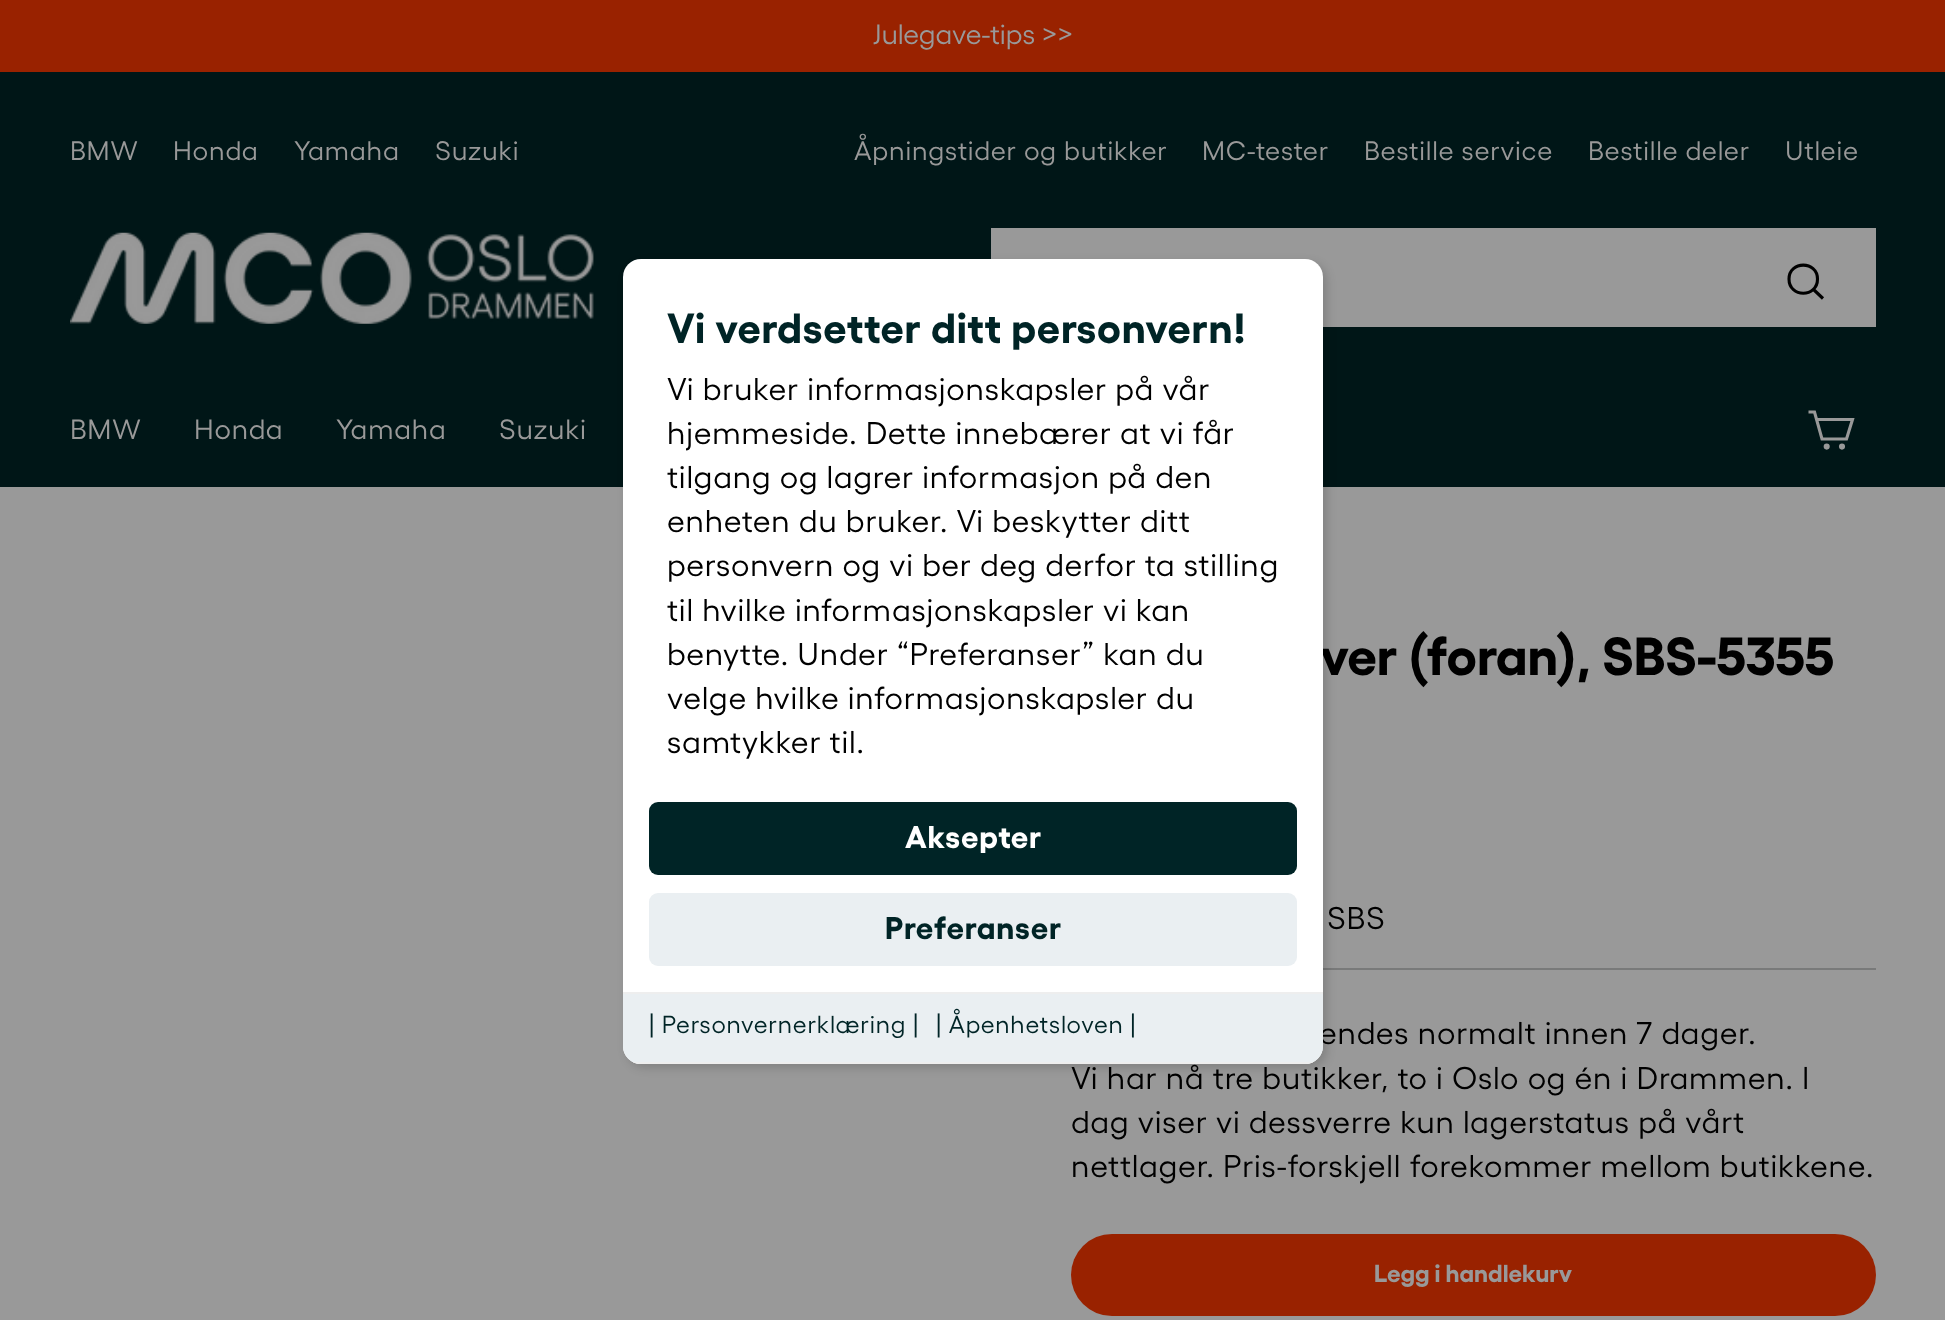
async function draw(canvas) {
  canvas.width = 1945;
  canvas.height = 1320;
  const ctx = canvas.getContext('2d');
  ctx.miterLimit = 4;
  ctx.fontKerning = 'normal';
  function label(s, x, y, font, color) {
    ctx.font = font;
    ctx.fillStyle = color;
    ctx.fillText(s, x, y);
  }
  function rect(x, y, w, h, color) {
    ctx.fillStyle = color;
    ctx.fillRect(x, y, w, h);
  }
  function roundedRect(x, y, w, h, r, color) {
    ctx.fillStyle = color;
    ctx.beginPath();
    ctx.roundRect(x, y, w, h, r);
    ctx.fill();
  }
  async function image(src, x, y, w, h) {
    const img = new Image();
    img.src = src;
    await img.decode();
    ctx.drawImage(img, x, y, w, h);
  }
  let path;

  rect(0, 0, 1945, 1320, '#999');
  rect(0, 72, 1945, 415, '#001617');
  rect(0, 0, 1945, 72, '#920');
  label('Julegave-tips >>', 873, 44, '28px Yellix', '#999');
  ctx.letterSpacing = '0.8px';
  label('BMW', 70, 160, '26.75px Yellix', '#999');
  label('Honda', 173, 160, '26.75px Yellix', '#999');
  label('Yamaha', 294, 160, '26.75px Yellix', '#999');
  label('Suzuki', 435, 160, '26.75px Yellix', '#999');
  label('Åpningstider og butikker', 854, 160, '26.75px Yellix', '#999');
  label('MC-tester', 1202, 160, '26.75px Yellix', '#999');
  label('Bestille service', 1364, 160, '26.75px Yellix', '#999');
  label('Bestille deler', 1588, 160, '26.75px Yellix', '#999');
  label('Utleie', 1785, 160, '26.75px Yellix', '#999');
  await image('assets/img1.png', 70, 232, 524, 92);
  rect(991, 228, 885, 99, '#999');
  path = new Path2D('M1817.5 279C1817.5 298 1789 298 1789 279C1789 260.5 1817.5 260.5 1817.5 279ZM1823 298.5L1813.5 289.5');
  ctx.strokeStyle = '#000';
  ctx.lineWidth = 3.1;
  ctx.stroke(path);
  label('BMW', 70, 439, '28px Yellix', '#999');
  label('Honda', 194, 439, '28px Yellix', '#999');
  label('Yamaha', 336, 439, '28px Yellix', '#999');
  label('Suzuki', 499, 439, '28px Yellix', '#999');
  path = new Path2D('M1816.5 419.5H1852.5L1846.5 439H1822L1814.5 412H1808.5');
  ctx.strokeStyle = '#999';
  ctx.stroke(path);
  ctx.beginPath();
  ctx.arc(1826.7, 446.6, 1.5, 0, 2 * Math.PI);
  ctx.stroke();
  ctx.beginPath();
  ctx.arc(1842, 446.6, 1.5, 0, 2 * Math.PI);
  ctx.stroke();
  ctx.letterSpacing = '0px';
  label('ver (foran), SBS-5355', 1320, 675, 'bold 53.5px Yellix', '#000');
  ctx.letterSpacing = '0.8px';
  label('SBS', 1327, 929, '31.5px Yellix', '#000');
  rect(1323, 968, 553, 2, '#797a7a');
  label('endes normalt innen 7 dager.', 1319, 1044, '31.5px Yellix', '#000');
  label('Vi har nå tre butikker, to i Oslo og én i Drammen. I', 1071, 1089, '31.5px Yellix', '#000');
  label('dag viser vi dessverre kun lagerstatus på vårt', 1071, 1133, '31.5px Yellix', '#000');
  label('nettlager. Pris-forskjell forekommer mellom butikkene.', 1071, 1177, '31.5px Yellix', '#000');
  roundedRect(1071, 1234, 805, 82, 41, '#920');
  ctx.letterSpacing = '0px';
  label('Legg i handlekurv', 1374, 1282, 'bold 24.5px Yellix', '#999');
  ctx.fillStyle = '#00000026';
  ctx.filter = 'blur(5px)';
  ctx.beginPath();
  ctx.roundRect(627, 263, 700, 805, 18);
  ctx.fill();
  ctx.filter = 'none';
  roundedRect(623, 259, 700, 805, 18, '#fff');
  ctx.letterSpacing = '0.8px';
  label('Vi verdsetter ditt personvern!', 667, 343, 'bold 42px Yellix', '#002426');
  label('Vi bruker informasjonskapsler på vår', 667, 400, '31.5px Yellix', '#000');
  label('hjemmeside. Dette innebærer at vi får', 667, 444, '31.5px Yellix', '#000');
  label('tilgang og lagrer informasjon på den', 667, 488, '31.5px Yellix', '#000');
  label('enheten du bruker. Vi beskytter ditt', 667, 532, '31.5px Yellix', '#000');
  label('personvern og vi ber deg derfor ta stilling', 667, 576, '31.5px Yellix', '#000');
  label('til hvilke informasjonskapsler vi kan', 667, 621, '31.5px Yellix', '#000');
  label('benytte. Under “Preferanser” kan du', 667, 665, '31.5px Yellix', '#000');
  label('velge hvilke informasjonskapsler du', 667, 709, '31.5px Yellix', '#000');
  label('samtykker til.', 667, 753, '31.5px Yellix', '#000');
  roundedRect(649, 802, 648, 73, 9, '#002426');
  label('Aksepter', 905, 848, 'bold 31.5px Yellix', '#fff');
  roundedRect(649, 893, 648, 73, 9, '#eaeff2');
  label('Preferanser', 885, 939, 'bold 31.5px Yellix', '#002426');
  ctx.fillStyle = '#eaeff2';
  ctx.beginPath();
  ctx.roundRect(623, 992, 700, 72, [0, 0, 18, 18]);
  ctx.fill();
  rect(623, 992, 700, 2, '#eee');
  ctx.save();
  ctx.beginPath();
  ctx.roundRect(623, 259, 700, 805, 18);
  ctx.clip();
  rect(633, 1062, 680, 2, '#eee');
  ctx.restore();
  label('| Personvernerklæring |', 649, 1033, '24.5px Yellix', '#002426');
  label('| Åpenhetsloven |', 936, 1033, '24.5px Yellix', '#002426');
}

draw(document.querySelector('canvas'));
